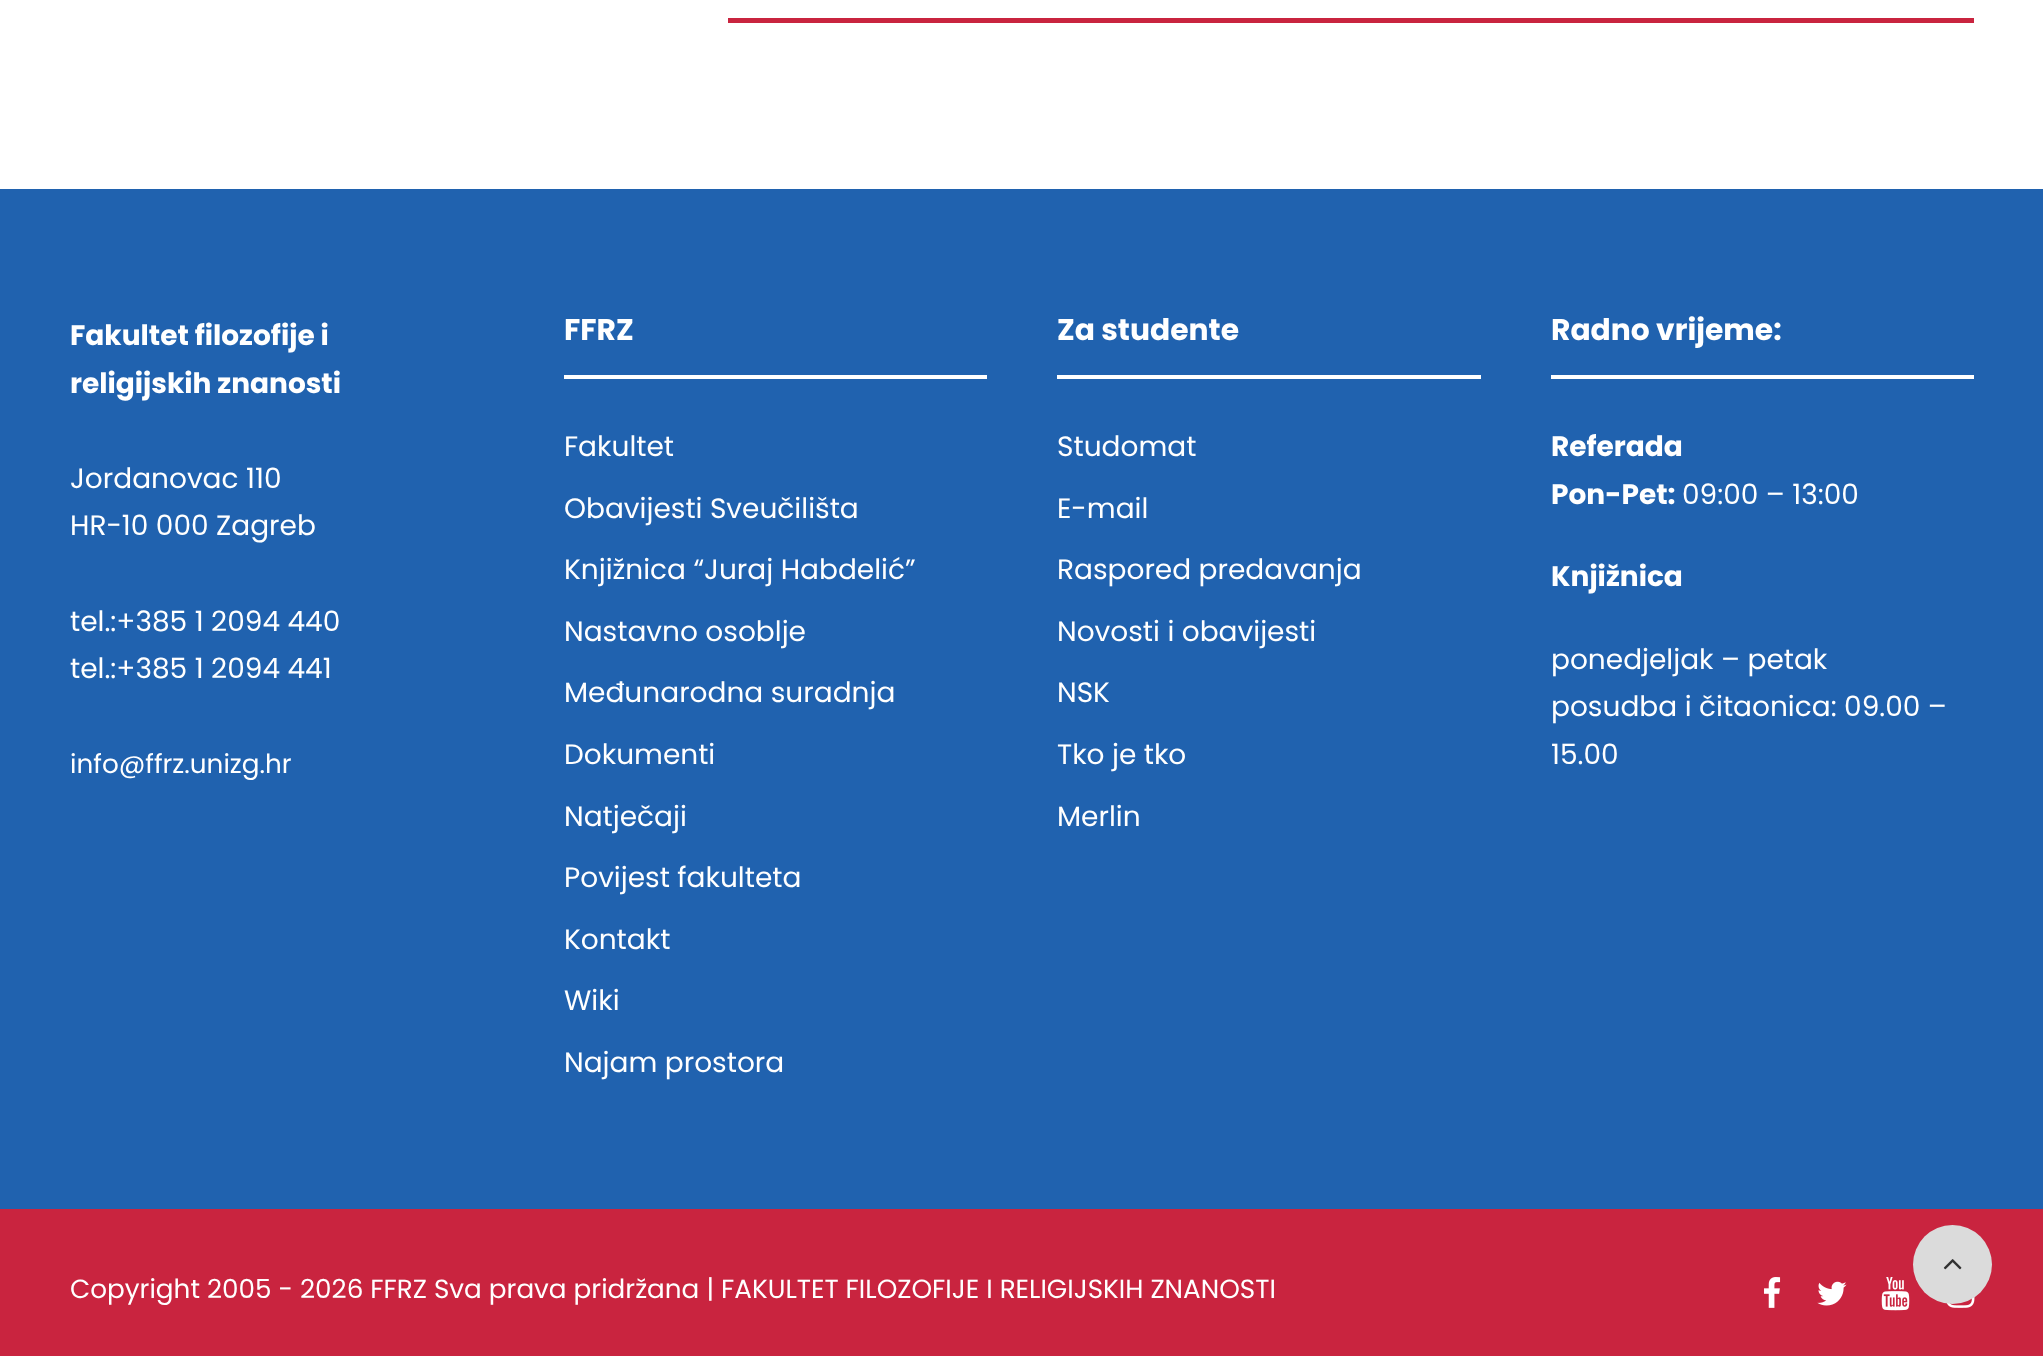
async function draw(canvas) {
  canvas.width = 2043;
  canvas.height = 1356;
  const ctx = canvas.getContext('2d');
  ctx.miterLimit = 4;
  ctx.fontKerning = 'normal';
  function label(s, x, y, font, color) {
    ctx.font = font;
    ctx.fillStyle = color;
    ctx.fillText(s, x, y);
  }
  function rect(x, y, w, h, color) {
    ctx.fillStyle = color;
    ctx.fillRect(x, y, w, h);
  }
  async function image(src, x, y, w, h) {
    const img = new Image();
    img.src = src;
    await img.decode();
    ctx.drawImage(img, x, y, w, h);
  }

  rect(0, 0, 2043, 1356, '#fff');
  rect(728, 18, 1246, 5, '#c9243f');
  rect(0, 189, 2043, 1020, '#2062af');
  label('Fakultet filozofije i', 70, 345, 'bold 28px Poppins', '#fff');
  label('religijskih znanosti', 70, 393, 'bold 28px Poppins', '#fff');
  label('Jordanovac 110', 70, 488, '28px Poppins', '#fff');
  label('HR-10 000 Zagreb', 70, 535, '28px Poppins', '#fff');
  label('tel.:+385 1 2094 440', 70, 631, '28px Poppins', '#fff');
  label('tel.:+385 1 2094 441', 70, 678, '28px Poppins', '#fff');
  label('info@ffrz.unizg.hr', 70, 773, '26.25px Poppins', '#fff');
  rect(564, 375, 423, 4, '#fff');
  label('FFRZ', 564, 340, 'bold 29.75px Poppins', '#fff');
  label('Fakultet', 564, 456, '28px Poppins', '#fff');
  label('Obavijesti Sveučilišta', 564, 518, '28px Poppins', '#fff');
  label('Knjižnica “Juraj Habdelić”', 564, 579, '28px Poppins', '#fff');
  label('Nastavno osoblje', 564, 641, '28px Poppins', '#fff');
  label('Međunarodna suradnja', 564, 702, '28px Poppins', '#fff');
  label('Dokumenti', 564, 764, '28px Poppins', '#fff');
  label('Natječaji', 564, 826, '28px Poppins', '#fff');
  label('Povijest fakulteta', 564, 887, '28px Poppins', '#fff');
  label('Kontakt', 564, 949, '28px Poppins', '#fff');
  label('Wiki', 564, 1010, '28px Poppins', '#fff');
  label('Najam prostora', 564, 1072, '28px Poppins', '#fff');
  rect(1057, 375, 424, 4, '#fff');
  label('Za studente', 1057, 340, 'bold 29.75px Poppins', '#fff');
  label('Studomat', 1057, 456, '28px Poppins', '#fff');
  label('E-mail', 1057, 518, '28px Poppins', '#fff');
  label('Raspored predavanja', 1057, 579, '28px Poppins', '#fff');
  label('Novosti i obavijesti', 1057, 641, '28px Poppins', '#fff');
  label('NSK', 1057, 702, '28px Poppins', '#fff');
  label('Tko je tko', 1057, 764, '28px Poppins', '#fff');
  label('Merlin', 1057, 826, '28px Poppins', '#fff');
  rect(1551, 375, 423, 4, '#fff');
  label('Radno vrijeme:', 1551, 340, 'bold 29.75px Poppins', '#fff');
  label('Referada', 1551, 456, 'bold 28px Poppins', '#fff');
  label('Pon-Pet:', 1551, 504, 'bold 28px Poppins', '#fff');
  label('09:00 – 13:00', 1682, 504, '28px Poppins', '#fff');
  label('Knjižnica', 1551, 586, 'bold 28px Poppins', '#fff');
  label('ponedjeljak – petak', 1551, 669, '28px Poppins', '#fff');
  label('posudba i čitaonica: 09.00 –', 1551, 716, '28px Poppins', '#fff');
  label('15.00', 1551, 764, '28px Poppins', '#fff');
  rect(0, 1209, 2043, 147, '#c9243f');
  label('Copyright 2005 - 2026 FFRZ Sva prava pridržana | FAKULTET FILOZOFIJE I RELIGIJSKIH ZNANOSTI', 70, 1298, '26.25px Poppins', '#fff');
  await image('assets/img1.png', 1764, 1277, 17, 31);
  await image('assets/img2.png', 1817, 1281, 30, 25);
  await image('assets/img3.png', 1881, 1277, 29, 34);
  await image('assets/img4.png', 1946, 1297, 29, 11);
  ctx.fillStyle = '#dbdbdb';
  ctx.beginPath();
  ctx.arc(1952.5, 1264.5, 39.5, 0, 2 * Math.PI);
  ctx.fill();
  await image('assets/img5.png', 1943, 1259, 19, 11);
}

draw(document.querySelector('canvas'));
